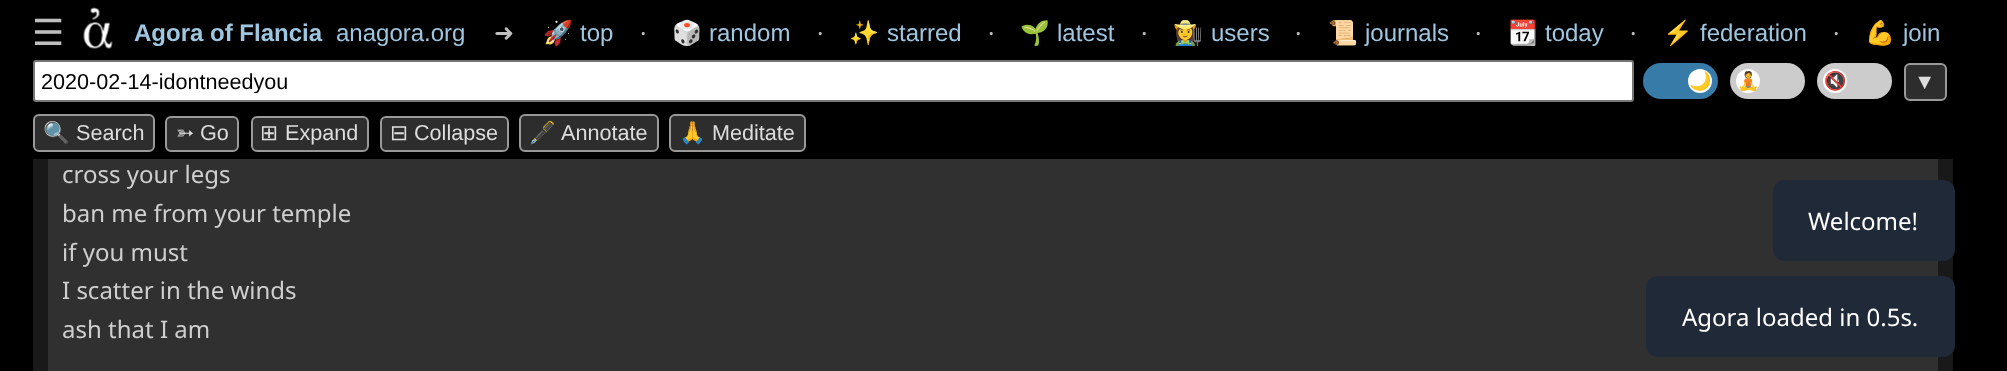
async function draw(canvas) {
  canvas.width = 2007;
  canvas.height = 371;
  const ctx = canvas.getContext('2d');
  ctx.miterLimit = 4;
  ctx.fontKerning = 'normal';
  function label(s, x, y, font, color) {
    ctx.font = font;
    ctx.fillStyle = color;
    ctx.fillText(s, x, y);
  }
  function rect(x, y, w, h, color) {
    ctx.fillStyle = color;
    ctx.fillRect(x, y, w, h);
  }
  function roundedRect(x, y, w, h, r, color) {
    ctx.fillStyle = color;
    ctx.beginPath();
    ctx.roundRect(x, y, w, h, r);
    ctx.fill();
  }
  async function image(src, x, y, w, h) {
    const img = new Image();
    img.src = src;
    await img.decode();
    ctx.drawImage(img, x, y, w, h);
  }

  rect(0, 0, 2007, 371, '#000');
  label('☰', 32, 45, '36px DejaVu Sans', '#bfbfbf');
  await image('assets/img1.png', 83, 7, 30, 42);
  label('Agora of Flancia', 134, 41, 'bold 24px Liberation Sans', '#9fc6e0');
  label('anagora.org', 336, 41, '24px Liberation Sans', '#9fc6e0');
  label('➜', 494, 41, '24px DejaVu Sans', '#bfbfbf');
  label('🚀', 543, 41, '24px Noto Color Emoji', '#9fc6e0');
  label('top', 580, 41, '24px Liberation Sans', '#9fc6e0');
  label('⸱', 640, 42, '24px Noto Sans', '#bfbfbf');
  label('🎲️', 672, 41, '24px Noto Color Emoji', '#9fc6e0');
  label('random', 709, 41, '24px Liberation Sans', '#9fc6e0');
  label('⸱', 817, 42, '24px Noto Sans', '#bfbfbf');
  label('✨', 849, 41, '24px Noto Color Emoji', '#9fc6e0');
  label('starred', 887, 41, '24px Liberation Sans', '#9fc6e0');
  label('⸱', 988, 42, '24px Noto Sans', '#bfbfbf');
  label('🌱', 1020, 41, '24px Noto Color Emoji', '#9fc6e0');
  label('latest', 1057, 41, '24px Liberation Sans', '#9fc6e0');
  label('⸱', 1141, 42, '24px Noto Sans', '#bfbfbf');
  label('👩‍🌾', 1173, 41, '24px Noto Color Emoji', '#9fc6e0');
  label('users', 1211, 41, '24px Liberation Sans', '#9fc6e0');
  label('⸱', 1295, 42, '24px Noto Sans', '#bfbfbf');
  label('📜', 1328, 41, '24px Noto Color Emoji', '#9fc6e0');
  label('journals', 1365, 41, '24px Liberation Sans', '#9fc6e0');
  label('⸱', 1475, 42, '24px Noto Sans', '#bfbfbf');
  label('📆', 1508, 41, '24px Noto Color Emoji', '#9fc6e0');
  label('today', 1545, 41, '24px Liberation Sans', '#9fc6e0');
  label('⸱', 1630, 42, '24px Noto Sans', '#bfbfbf');
  label('⚡', 1663, 41, '24px Noto Color Emoji', '#9fc6e0');
  label('federation', 1700, 41, '24px Liberation Sans', '#9fc6e0');
  label('⸱', 1833, 42, '24px Noto Sans', '#bfbfbf');
  label('💪', 1865, 41, '24px Noto Color Emoji', '#9fc6e0');
  label('join', 1903, 41, '24px Liberation Sans', '#9fc6e0');
  ctx.fillStyle = '#fff';
  ctx.beginPath();
  ctx.roundRect(34, 61, 1599, 40, 2);
  ctx.fill();
  ctx.strokeStyle = '#767676';
  ctx.lineWidth = 2;
  ctx.stroke();
  ctx.save();
  ctx.beginPath();
  ctx.rect(42, 69, 1583, 24);
  ctx.clip();
  label('2020-02-14-idontneedyou', 41, 89, '21.6px Liberation Sans', '#000');
  ctx.restore();
  roundedRect(1643, 63, 75, 36, 18, '#377ba8');
  ctx.fillStyle = '#fff';
  ctx.beginPath();
  ctx.arc(1700, 81, 12, 0, 2 * Math.PI);
  ctx.fill();
  label('🌙', 1689, 87, '18px Noto Color Emoji', '#bfbfbf');
  roundedRect(1730, 63, 75, 36, 18, '#ccc');
  ctx.fillStyle = '#fff';
  ctx.beginPath();
  ctx.arc(1748, 81, 12, 0, 2 * Math.PI);
  ctx.fill();
  label('🧘', 1737, 87, '18px Noto Color Emoji', '#bfbfbf');
  roundedRect(1817, 63, 75, 36, 18, '#ccc');
  ctx.fillStyle = '#fff';
  ctx.beginPath();
  ctx.arc(1835, 81, 12, 0, 2 * Math.PI);
  ctx.fill();
  label('🔇', 1824, 87, '18px Noto Color Emoji', '#bfbfbf');
  ctx.fillStyle = '#2d2d2d';
  ctx.beginPath();
  ctx.roundRect(1905, 64, 41, 36, 5);
  ctx.fill();
  ctx.strokeStyle = '#999';
  ctx.stroke();
  label('▼', 1914, 89, '21.6px Liberation Sans', '#ddd');
  ctx.fillStyle = '#2d2d2d';
  ctx.beginPath();
  ctx.roundRect(34, 115, 120, 36, 5);
  ctx.fill();
  ctx.stroke();
  label('🔍', 43, 140, '21.6px Noto Color Emoji', '#ddd');
  label('Search', 76, 140, '21.6px Liberation Sans', '#ddd');
  ctx.fillStyle = '#2d2d2d';
  ctx.beginPath();
  ctx.roundRect(166, 117, 72, 34, 5);
  ctx.fill();
  ctx.stroke();
  label('➳', 176, 140, '21.6px DejaVu Sans', '#ddd');
  label('Go', 200, 140, '21.6px Liberation Sans', '#ddd');
  ctx.fillStyle = '#2d2d2d';
  ctx.beginPath();
  ctx.roundRect(252, 117, 116, 34, 5);
  ctx.fill();
  ctx.stroke();
  label('⊞', 260, 140, '21.6px DejaVu Sans', '#ddd');
  label('Expand', 285, 140, '21.6px Liberation Sans', '#ddd');
  ctx.fillStyle = '#2d2d2d';
  ctx.beginPath();
  ctx.roundRect(381, 117, 127, 34, 5);
  ctx.fill();
  ctx.stroke();
  label('⊟', 390, 140, '21.6px DejaVu Sans', '#ddd');
  label('Collapse', 414, 140, '21.6px Liberation Sans', '#ddd');
  ctx.fillStyle = '#2d2d2d';
  ctx.beginPath();
  ctx.roundRect(520, 115, 138, 36, 5);
  ctx.fill();
  ctx.stroke();
  label('🖋️', 529, 140, '21.6px Noto Color Emoji', '#ddd');
  label('Annotate', 561, 140, '21.6px Liberation Sans', '#ddd');
  ctx.fillStyle = '#2d2d2d';
  ctx.beginPath();
  ctx.roundRect(670, 115, 135, 36, 5);
  ctx.fill();
  ctx.stroke();
  label('🙏', 679, 140, '21.6px Noto Color Emoji', '#ddd');
  label('Meditate', 712, 140, '21.6px Liberation Sans', '#ddd');
  rect(33, 159, 1920, 212, '#191919');
  rect(48, 159, 1890, 212, '#303030');
  label('cross your legs', 62, 183, '24px Noto Sans', '#cfcfcf');
  label('ban me from your temple', 62, 222, '24px Noto Sans', '#cfcfcf');
  label('if you must', 62, 261, '24px Noto Sans', '#cfcfcf');
  label('I scatter in the winds', 62, 299, '24px Noto Sans', '#cfcfcf');
  label('ash that I am', 62, 338, '24px Noto Sans', '#cfcfcf');
  roundedRect(1773, 180, 182, 81, 12, '#1f2937');
  label('Welcome!', 1808, 230, '24px Noto Sans', '#fff');
  roundedRect(1646, 276, 309, 81, 12, '#1f2937');
  label('Agora loaded in 0.5s.', 1682, 326, '24px Noto Sans', '#fff');
}

draw(document.querySelector('canvas'));
